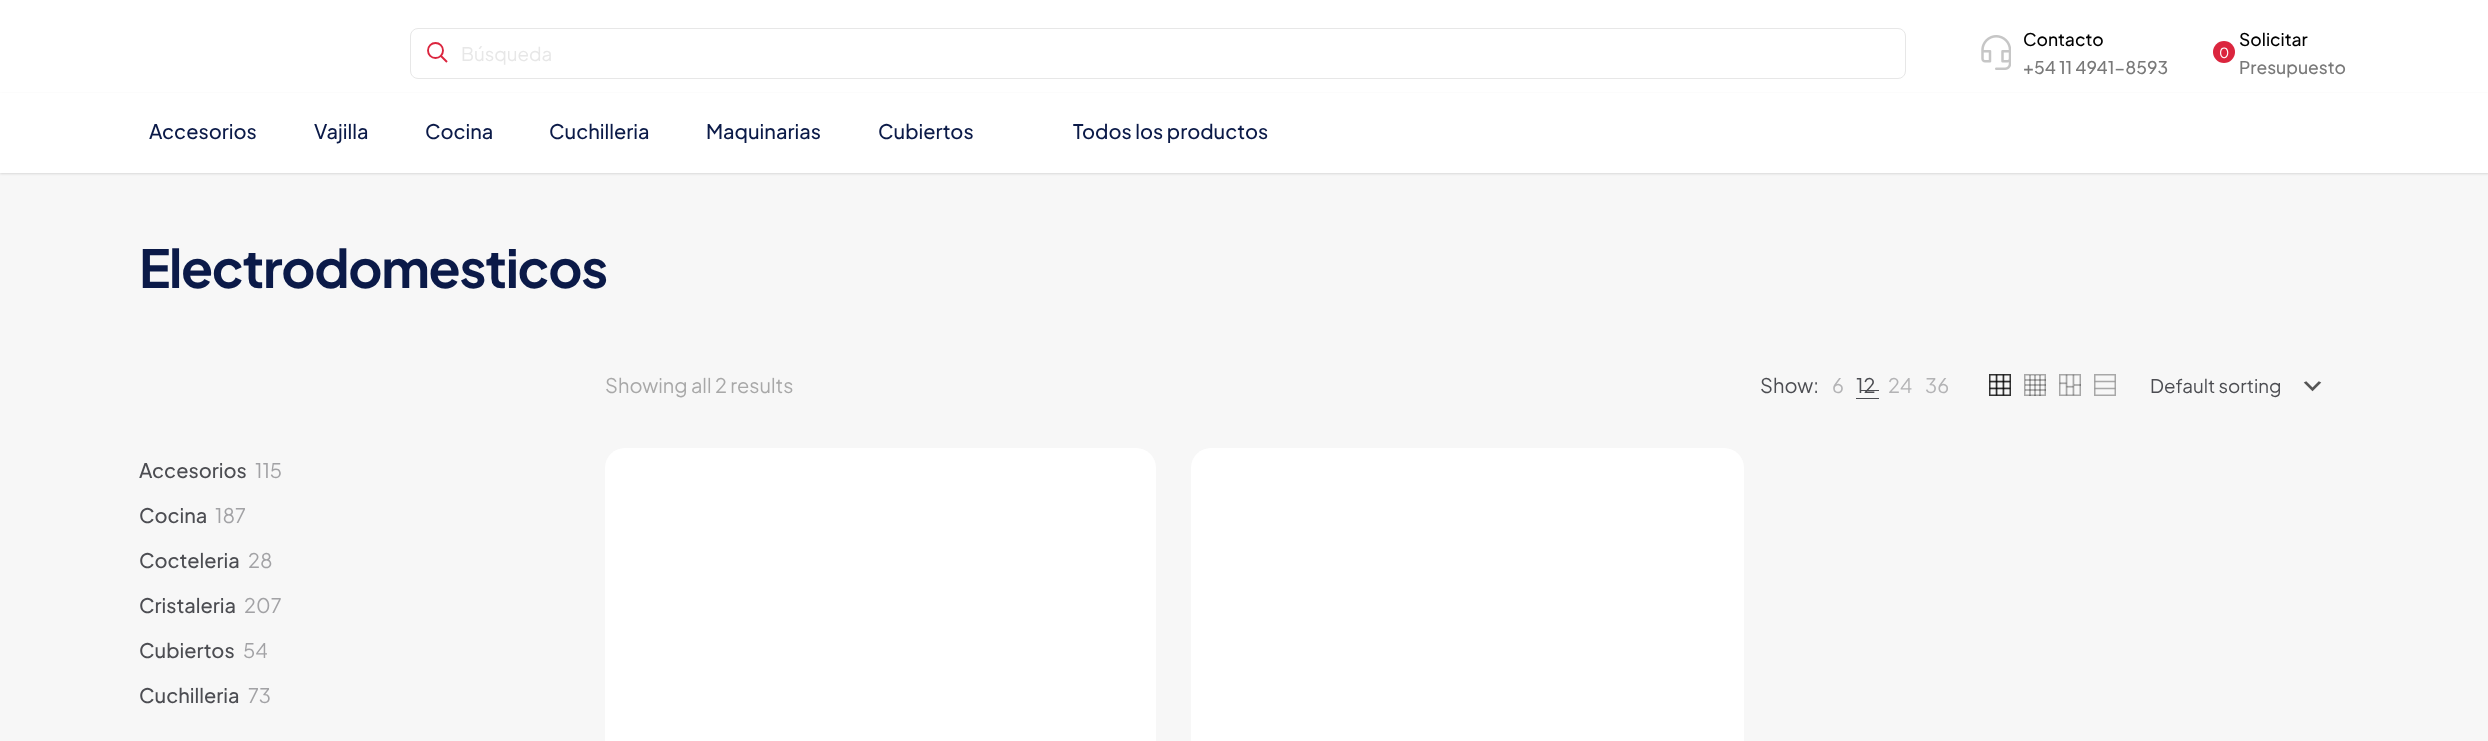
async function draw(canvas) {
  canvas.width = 2488;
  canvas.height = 741;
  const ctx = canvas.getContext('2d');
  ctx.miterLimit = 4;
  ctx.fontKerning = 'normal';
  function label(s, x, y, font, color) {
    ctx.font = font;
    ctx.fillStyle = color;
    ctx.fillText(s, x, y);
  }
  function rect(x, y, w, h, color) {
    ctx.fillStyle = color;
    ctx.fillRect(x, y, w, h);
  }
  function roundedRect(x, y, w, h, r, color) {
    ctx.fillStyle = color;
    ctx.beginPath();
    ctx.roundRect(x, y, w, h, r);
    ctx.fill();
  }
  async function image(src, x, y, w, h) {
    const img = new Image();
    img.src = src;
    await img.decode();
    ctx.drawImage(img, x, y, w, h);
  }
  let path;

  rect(0, 0, 2488, 741, '#f7f7f7');
  rect(0, 0, 2488, 93, '#fff');
  ctx.beginPath();
  ctx.roundRect(410.5, 28.5, 1495, 50, 7.5);
  ctx.strokeStyle = '#e7e7e7';
  ctx.stroke();
  ctx.beginPath();
  ctx.arc(435.5, 50.5, 7.5, 0, 2 * Math.PI);
  ctx.strokeStyle = '#db253e';
  ctx.lineWidth = 1.9;
  ctx.stroke();
  path = new Path2D('M440.5 55.5L447 62');
  ctx.stroke(path);
  label('Búsqueda', 461, 61, '18.75px Plus Jakarta Sans', '#e7e7e7');
  await image('assets/img1.png', 1981, 35, 30, 35);
  label('Contacto', 2023, 46, '500 17.5px Plus Jakarta Sans', '#000');
  label('+54 11 4941-8593', 2023, 74, '500 17.5px Plus Jakarta Sans', '#797979');
  ctx.fillStyle = '#db253e';
  ctx.beginPath();
  ctx.arc(2224, 52, 11, 0, 2 * Math.PI);
  ctx.fill();
  label('0', 2219, 58, '14px Plus Jakarta Sans', '#fff');
  label('Solicitar', 2239, 46, '500 17.5px Plus Jakarta Sans', '#000');
  label('Presupuesto', 2239, 74, '500 17.5px Plus Jakarta Sans', '#797979');
  ctx.fillStyle = '#0000001f';
  ctx.filter = 'blur(1px)';
  ctx.beginPath();
  ctx.rect(0, 94, 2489, 80);
  ctx.fill();
  ctx.filter = 'none';
  rect(0, 93, 2488, 80, '#fff');
  label('Accesorios', 149, 139, '500 20px Plus Jakarta Sans', '#0b1a48');
  label('Vajilla', 314, 139, '500 20px Plus Jakarta Sans', '#0b1a48');
  label('Cocina', 425, 139, '500 20px Plus Jakarta Sans', '#0b1a48');
  label('Cuchilleria', 549, 139, '500 20px Plus Jakarta Sans', '#0b1a48');
  label('Maquinarias', 706, 139, '500 20px Plus Jakarta Sans', '#0b1a48');
  label('Cubiertos', 878, 139, '500 20px Plus Jakarta Sans', '#0b1a48');
  label('Todos los productos', 1073, 139, '500 20px Plus Jakarta Sans', '#0b1a48');
  ctx.letterSpacing = '-1.25px';
  label('Electrodomesticos', 139, 288, 'bold 52.5px Plus Jakarta Sans', '#0b1a48');
  ctx.letterSpacing = '0px';
  label('Showing all 2 results', 605, 393, '20px Plus Jakarta Sans', '#a8a8a8');
  label('Show:', 1760, 393, '20px Plus Jakarta Sans', '#4c4d52');
  label('6', 1832, 393, '20px Plus Jakarta Sans', '#b3b3b5');
  rect(1860, 390, 19, 1, '#4c4d52');
  label('12', 1856, 393, '20px Plus Jakarta Sans', '#4c4d52');
  rect(1856, 398, 23, 1, '#4c4d52');
  label('24', 1888, 393, '20px Plus Jakarta Sans', '#b3b3b5');
  label('36', 1925, 393, '20px Plus Jakarta Sans', '#b3b3b5');
  await image('assets/img2.png', 1989, 374, 22, 22);
  await image('assets/img3.png', 2024, 374, 22, 22);
  await image('assets/img4.png', 2059, 374, 22, 22);
  ctx.strokeStyle = '#a8a8a8';
  ctx.lineWidth = 1.5;
  ctx.strokeRect(2094.75, 374.75, 20.5, 20.5);
  path = new Path2D('M2094.5 381.5H2115.5M2094.5 388.5H2115.5');
  ctx.strokeStyle = '#949494cc';
  ctx.lineWidth = 1.7;
  ctx.stroke(path);
  await image('assets/img5.png', 2303, 381, 19, 11);
  label('Default sorting', 2150, 393, '18.75px Plus Jakarta Sans', '#4c4d52');
  roundedRect(605, 448, 551, 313, 20, '#fff');
  roundedRect(1191, 448, 553, 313, 20, '#fff');
  label('Accesorios', 139, 478, '500 20px Plus Jakarta Sans', '#4c4d52');
  label('115', 255, 478, '20px Plus Jakarta Sans', '#a2a2a5');
  label('Cocina', 139, 523, '500 20px Plus Jakarta Sans', '#4c4d52');
  label('187', 215, 523, '20px Plus Jakarta Sans', '#a2a2a5');
  label('Cocteleria', 139, 568, '500 20px Plus Jakarta Sans', '#4c4d52');
  label('28', 248, 568, '20px Plus Jakarta Sans', '#a2a2a5');
  label('Cristaleria', 139, 613, '500 20px Plus Jakarta Sans', '#4c4d52');
  label('207', 244, 613, '20px Plus Jakarta Sans', '#a2a2a5');
  label('Cubiertos', 139, 658, '500 20px Plus Jakarta Sans', '#4c4d52');
  label('54', 243, 658, '20px Plus Jakarta Sans', '#a2a2a5');
  label('Cuchilleria', 139, 703, '500 20px Plus Jakarta Sans', '#4c4d52');
  label('73', 248, 703, '20px Plus Jakarta Sans', '#a2a2a5');
}

draw(document.querySelector('canvas'));
